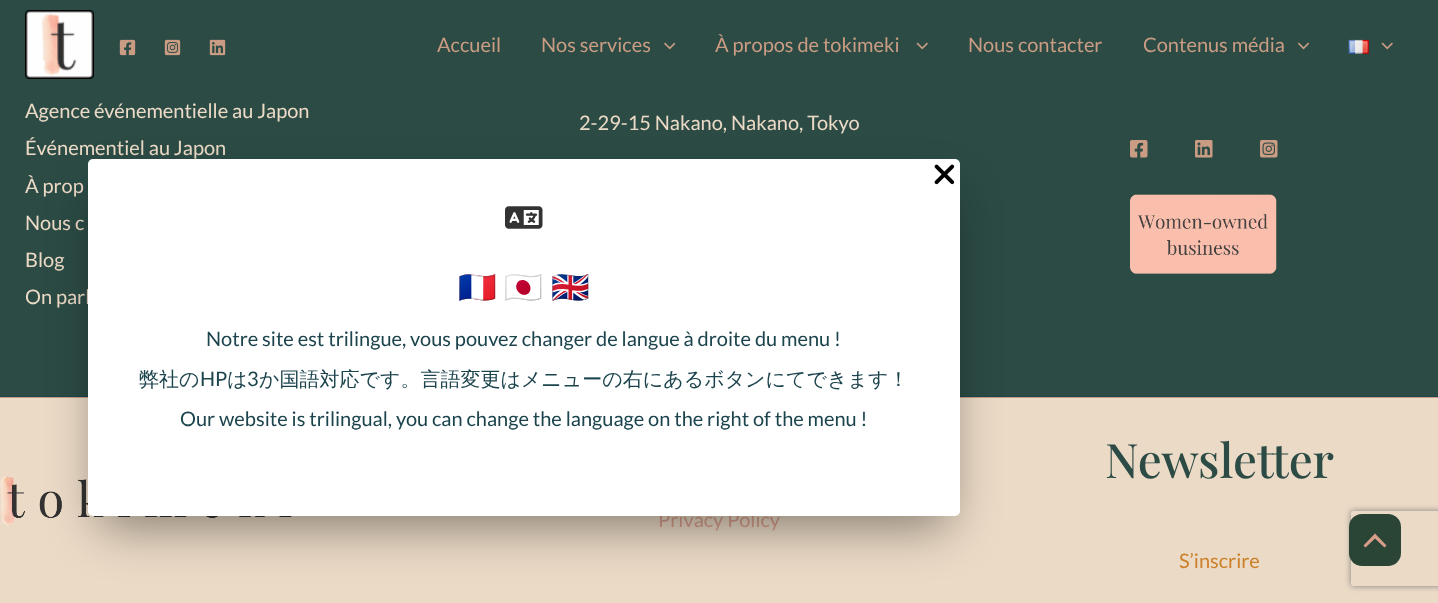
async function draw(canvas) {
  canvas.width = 1438;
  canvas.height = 603;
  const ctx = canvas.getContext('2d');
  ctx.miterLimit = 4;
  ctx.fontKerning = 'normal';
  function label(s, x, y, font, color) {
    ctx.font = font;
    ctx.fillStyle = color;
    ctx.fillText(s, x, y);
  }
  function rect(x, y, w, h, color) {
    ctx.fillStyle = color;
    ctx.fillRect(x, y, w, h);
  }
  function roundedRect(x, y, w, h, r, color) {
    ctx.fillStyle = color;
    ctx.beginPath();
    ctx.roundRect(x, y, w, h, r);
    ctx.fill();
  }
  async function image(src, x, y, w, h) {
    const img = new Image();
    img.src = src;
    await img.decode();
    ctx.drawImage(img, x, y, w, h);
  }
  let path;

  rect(0, 0, 1438, 603, '#ca9c83');
  rect(0, 0, 1438, 396, '#2c4b45');
  await image('assets/img1.png', 25, 10, 69, 69);
  await image('assets/img2.png', 119, 39, 17, 17);
  await image('assets/img3.png', 164, 39, 17, 17);
  await image('assets/img4.png', 209, 39, 17, 17);
  label('Accueil', 437, 52, '20px Lato', '#ca9c83');
  label('Nos services', 541, 52, '20px Lato', '#ca9c83');
  await image('assets/img5.png', 664, 42, 11, 8);
  label('À propos de tokimeki', 715, 52, '20px Lato', '#ca9c83');
  await image('assets/img6.png', 916, 42, 12, 8);
  label('Nous contacter', 968, 52, '20px Lato', '#ca9c83');
  label('Contenus média', 1143, 52, '20px Lato', '#ca9c83');
  await image('assets/img7.png', 1298, 42, 11, 8);
  await image('assets/img8.png', 1348, 39, 21, 15);
  await image('assets/img6.png', 1381, 42, 12, 8);
  label('Agence événementielle au Japon', 25, 118, '20px Lato', '#ebdac6');
  label('Événementiel au Japon', 25, 155, '20px Lato', '#ebdac6');
  label('À prop', 25, 193, '20px Lato', '#ebdac6');
  label('Nous c', 25, 230, '20px Lato', '#ebdac6');
  label('Blog', 25, 267, '20px Lato', '#ebdac6');
  label('On parl', 25, 304, '20px Lato', '#ebdac6');
  label('2-29-15 Nakano, Nakano, Tokyo', 579, 130, '20px Lato', '#ebdac6');
  await image('assets/img9.png', 1130, 140, 18, 18);
  await image('assets/img10.png', 1195, 140, 18, 18);
  await image('assets/img11.png', 1260, 140, 18, 18);
  await image('assets/img12.png', 1130, 194, 147, 80);
  rect(0, 398, 1438, 205, '#ebdac6');
  rect(0, 396, 1438, 1, '#1c444d');
  await image('assets/img13.png', 0, 476, 292, 49);
  label('Privacy Policy', 658, 527, '20px Lato', '#d79f8b');
  label('Newsletter', 1105, 478, '500 47.5px Playfair Display', '#2c4b45');
  label('S’inscrire', 1179, 568, '20px Lato', '#cc8029');
  ctx.fillStyle = '#00000070';
  ctx.filter = 'blur(25px)';
  ctx.beginPath();
  ctx.rect(100, 194, 848, 332);
  ctx.fill();
  ctx.filter = 'none';
  roundedRect(88, 159, 872, 357, 5, '#fff');
  await image('assets/img14.png', 934, 164, 21, 21);
  await image('assets/img15.png', 505, 206, 38, 23);
  label('🇫🇷', 458, 298, 'bold 31px Noto Color Emoji', '#2c4b45');
  label('🇯🇵', 504, 298, 'bold 31px Noto Color Emoji', '#2c4b45');
  label('🇬🇧', 551, 298, 'bold 31px Noto Color Emoji', '#2c4b45');
  label('Notre site est trilingue, vous pouvez changer de langue à droite du menu !', 206, 346, '20px Lato', '#1c444d');
  label('弊社の', 139, 386, '500 20px WenQuanYi Zen Hei', '#1c444d');
  label('HP', 200, 386, '20px Lato', '#1c444d');
  label('は', 227, 386, '500 20px WenQuanYi Zen Hei', '#1c444d');
  label('3', 247, 386, '20px Lato', '#1c444d');
  label('か国語対応です。言語変更はメニューの右にあるボタンにてできます！', 259, 386, '500 20px WenQuanYi Zen Hei', '#1c444d');
  label('Our website is trilingual, you can change the language on the right of the menu !', 180, 426, '20px Lato', '#1c444d');
  ctx.save();
  path = new Path2D('M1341 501H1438V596H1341ZM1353.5 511H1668.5C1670 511 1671 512 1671 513.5V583.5C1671 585 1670 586 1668.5 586H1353.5C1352 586 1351 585 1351 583.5V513.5C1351 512 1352 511 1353.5 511Z');
  ctx.clip(path, 'evenodd');
  ctx.fillStyle = '#808080';
  ctx.filter = 'blur(3px)';
  ctx.beginPath();
  ctx.roundRect(1351, 511, 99, 75, 2.5);
  ctx.fill();
  ctx.filter = 'none';
  ctx.restore();
  roundedRect(1349, 514, 52, 52, 13, '#2a4535');
  ctx.fillStyle = '#d79f8b';
  path = new Path2D('M1386.5 545.5L1375 533.5L1363.5 545.5L1365.5 547.5L1375 538.5L1384.5 547.5Z');
  ctx.fill(path);
}

draw(document.querySelector('canvas'));
